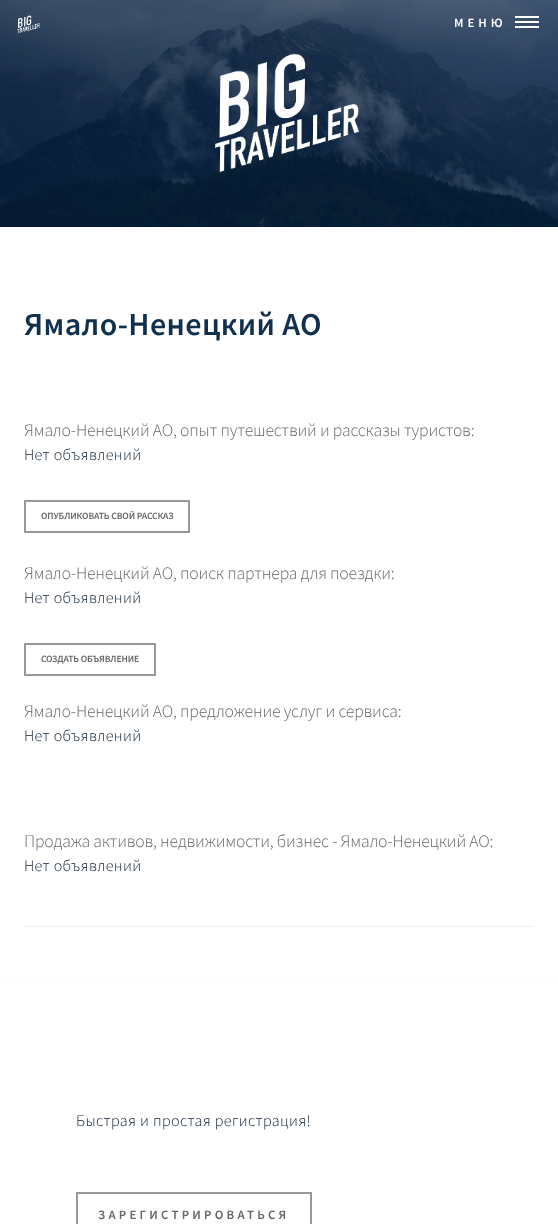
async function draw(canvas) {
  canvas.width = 558;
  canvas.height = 1224;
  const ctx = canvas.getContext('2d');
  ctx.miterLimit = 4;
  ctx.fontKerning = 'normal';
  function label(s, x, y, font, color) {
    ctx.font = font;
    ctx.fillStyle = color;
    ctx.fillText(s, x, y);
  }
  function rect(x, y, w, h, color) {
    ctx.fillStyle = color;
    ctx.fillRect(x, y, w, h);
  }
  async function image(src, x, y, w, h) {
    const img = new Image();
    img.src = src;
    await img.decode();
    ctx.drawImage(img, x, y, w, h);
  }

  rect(0, 0, 558, 1224, '#fff');
  await image('assets/img1.png', 0, 0, 558, 227);
  await image('assets/img2.png', 215, 53, 144, 119);
  await image('assets/img3.png', 17, 15, 23, 19);
  ctx.letterSpacing = '4px';
  label('МЕНЮ', 454, 27, '600 12.75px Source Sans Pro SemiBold', '#fff');
  rect(515, 16, 24, 2, '#fff');
  rect(515, 26, 24, 2, '#fff');
  rect(515, 21, 24, 2, '#fff');
  ctx.letterSpacing = '0.4px';
  label('Ямало-Ненецкий АО', 24, 335, '600 32px Source Sans Pro SemiBold', '#10304d');
  rect(24, 926, 510, 1, '#efeff0');
  ctx.letterSpacing = '-0.18px';
  label('Ямало-Ненецкий АО, опыт путешествий и рассказы туристов:', 24, 436, '300 17.6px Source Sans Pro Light', '#666');
  ctx.letterSpacing = '0.4px';
  label('Нет объявлений', 24, 460, '300 16px Source Sans Pro Light', '#081b2e');
  ctx.strokeStyle = '#999';
  ctx.lineWidth = 2;
  ctx.strokeRect(25, 501, 164, 31);
  ctx.letterSpacing = '-0.1px';
  label('ОПУБЛИКОВАТЬ СВОЙ РАССКАЗ', 41, 519, '600 9.6px Source Sans Pro SemiBold', '#666');
  ctx.letterSpacing = '-0.18px';
  label('Ямало-Ненецкий АО, поиск партнера для поездки:', 24, 579, '300 17.6px Source Sans Pro Light', '#666');
  ctx.letterSpacing = '0.4px';
  label('Нет объявлений', 24, 603, '300 16px Source Sans Pro Light', '#081b2e');
  ctx.strokeRect(25, 644, 130, 31);
  ctx.letterSpacing = '-0.1px';
  label('СОЗДАТЬ ОБЪЯВЛЕНИЕ', 41, 662, '600 9.6px Source Sans Pro SemiBold', '#666');
  ctx.letterSpacing = '-0.18px';
  label('Ямало-Ненецкий АО, предложение услуг и сервиса:', 24, 717, '300 17.6px Source Sans Pro Light', '#666');
  ctx.letterSpacing = '0.4px';
  label('Нет объявлений', 24, 741, '300 16px Source Sans Pro Light', '#081b2e');
  ctx.letterSpacing = '-0.18px';
  label('Продажа активов, недвижимости, бизнес - Ямало-Ненецкий АО:', 24, 847, '300 17.6px Source Sans Pro Light', '#666');
  ctx.letterSpacing = '0.4px';
  label('Нет объявлений', 24, 871, '300 16px Source Sans Pro Light', '#081b2e');
  rect(0, 979, 558, 1, '#fbfbff');
  label('Быстрая и простая регистрация!', 76, 1126, '300 16px Source Sans Pro Light', '#081b2e');
  ctx.strokeRect(77, 1193, 234, 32);
  ctx.letterSpacing = '3.25px';
  label('ЗАРЕГИСТРИРОВАТЬСЯ', 98, 1219, '600 12.75px Source Sans Pro SemiBold', '#666');
}

draw(document.querySelector('canvas'));
